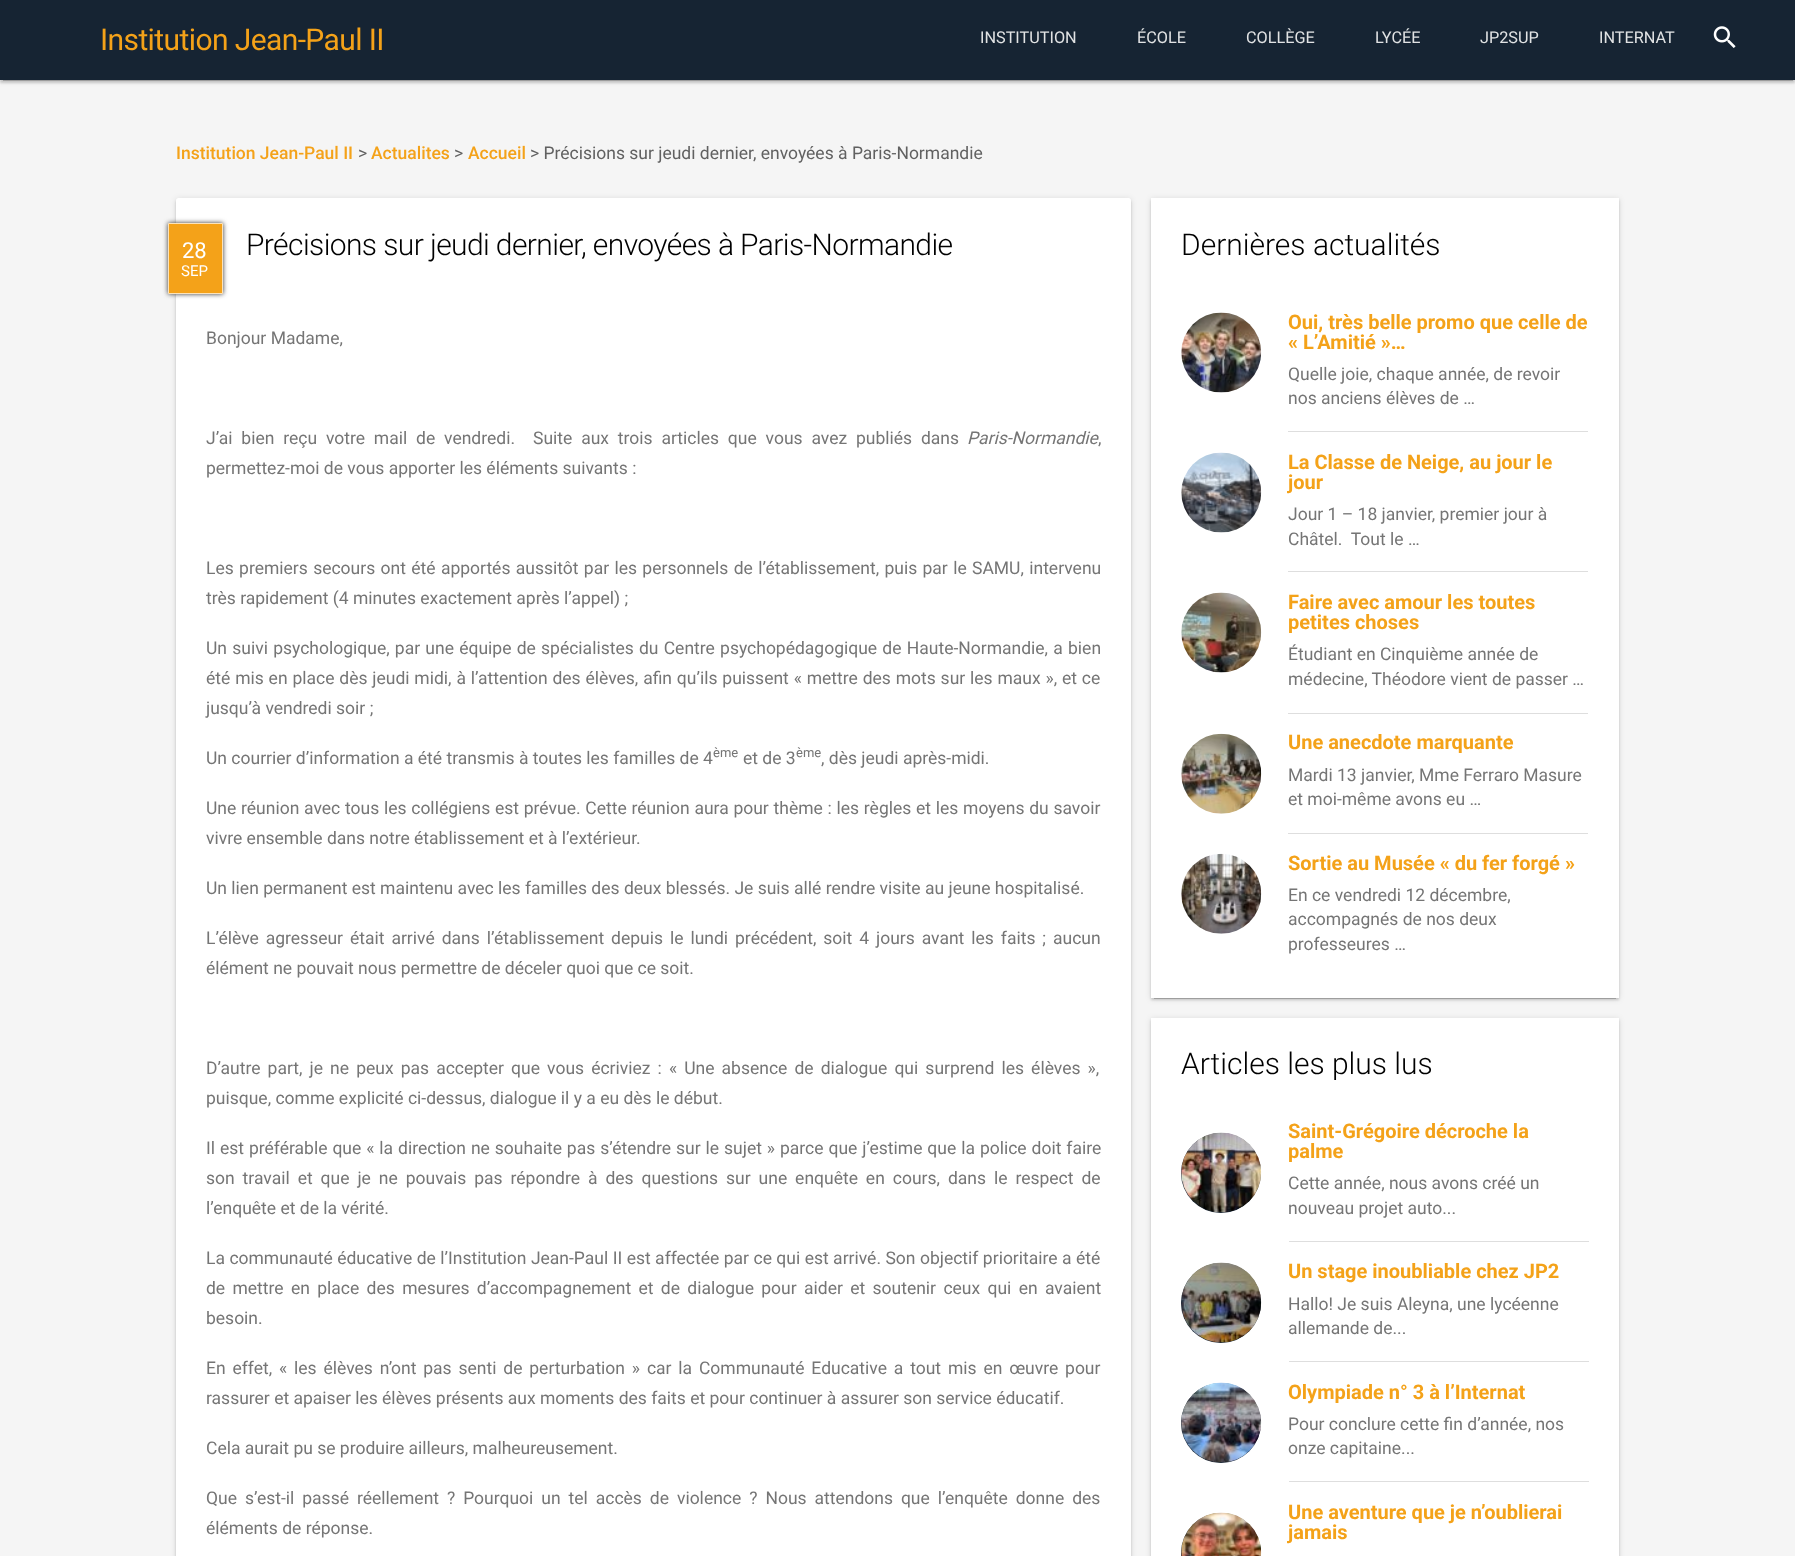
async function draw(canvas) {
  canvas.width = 1795;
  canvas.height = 1556;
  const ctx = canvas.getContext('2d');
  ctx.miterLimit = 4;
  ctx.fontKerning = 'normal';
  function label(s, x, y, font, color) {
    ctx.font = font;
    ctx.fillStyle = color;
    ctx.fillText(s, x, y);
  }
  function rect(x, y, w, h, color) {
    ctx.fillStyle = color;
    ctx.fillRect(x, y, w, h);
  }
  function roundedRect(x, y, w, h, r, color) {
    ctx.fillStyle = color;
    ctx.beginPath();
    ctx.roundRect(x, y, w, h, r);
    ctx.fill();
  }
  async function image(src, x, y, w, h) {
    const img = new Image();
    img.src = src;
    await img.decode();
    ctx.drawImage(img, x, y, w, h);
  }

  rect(0, 0, 1795, 1556, '#f5f5f5');
  ctx.fillStyle = '#0000001f';
  ctx.filter = 'blur(3px)';
  ctx.beginPath();
  ctx.rect(0, 1, 1795, 80);
  ctx.fill();
  ctx.filter = 'none';
  ctx.fillStyle = '#00000033';
  ctx.filter = 'blur(0.5px)';
  ctx.beginPath();
  ctx.rect(3, 6, 1790, 75);
  ctx.fill();
  ctx.filter = 'none';
  ctx.fillStyle = '#00000024';
  ctx.filter = 'blur(1px)';
  ctx.beginPath();
  ctx.rect(0, 3, 1795, 80);
  ctx.fill();
  ctx.filter = 'none';
  rect(0, 0, 1795, 80, '#162433');
  ctx.letterSpacing = '-0.6px';
  label('Institution Jean-Paul II', 100, 50, '30px Roboto', '#f4a219');
  ctx.letterSpacing = '0px';
  label('INSTITUTION', 980, 43, '16.25px Roboto', '#e1e3e4');
  label('ÉCOLE', 1137, 43, '16.25px Roboto', '#e1e3e4');
  label('COLLÈGE', 1246, 43, '16.25px Roboto', '#e1e3e4');
  label('LYCÉE', 1375, 43, '16.25px Roboto', '#e1e3e4');
  label('JP2SUP', 1480, 43, '16.25px Roboto', '#e1e3e4');
  label('INTERNAT', 1599, 43, '16.25px Roboto', '#e1e3e4');
  await image('assets/img1.png', 1713, 26, 23, 22);
  label('Institution Jean-Paul II', 176, 159, '500 17.5px Roboto', '#f4a219');
  label('>', 358, 159, '17.5px Roboto', '#616161');
  label('Actualites', 371, 159, '500 17.5px Roboto', '#f4a219');
  label('>', 454, 159, '17.5px Roboto', '#616161');
  label('Accueil', 468, 159, '500 17.5px Roboto', '#f4a219');
  label('> Précisions sur jeudi dernier, envoyées à Paris-Normandie', 530, 159, '17.5px Roboto', '#616161');
  ctx.fillStyle = '#0000001f';
  ctx.filter = 'blur(3px)';
  ctx.beginPath();
  ctx.roundRect(176, 199, 955, 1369, 2.5);
  ctx.fill();
  ctx.filter = 'none';
  ctx.fillStyle = '#00000024';
  ctx.filter = 'blur(1px)';
  ctx.beginPath();
  ctx.roundRect(176, 200, 955, 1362, 2.5);
  ctx.fill();
  ctx.filter = 'none';
  roundedRect(176, 198, 955, 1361, 2.5, '#fff');
  ctx.fillStyle = '#333';
  ctx.filter = 'blur(2.5px)';
  ctx.beginPath();
  ctx.rect(168, 223, 55, 71);
  ctx.fill();
  ctx.filter = 'none';
  ctx.fillStyle = '#f4a219';
  ctx.beginPath();
  ctx.rect(168.5, 223.5, 54, 70);
  ctx.fill();
  ctx.strokeStyle = '#fce3ba';
  ctx.stroke();
  label('28', 182, 258, '22px Roboto', '#fff');
  label('SEP', 181, 276, '15px Roboto', '#fff');
  ctx.letterSpacing = '-0.6px';
  label('Précisions sur jeudi dernier, envoyées à Paris-Normandie', 246, 255, '300 30px Roboto', '#000');
  ctx.letterSpacing = '0px';
  label('Bonjour Madame,', 206, 344, '17.5px Roboto', '#757575');
  ctx.wordSpacing = '4.5px';
  label('J’ai bien reçu votre mail de vendredi.', 206, 444, '17.5px Roboto', '#757575');
  label('Suite aux trois articles que vous avez publiés dans', 533, 444, '17.5px Roboto', '#757575');
  ctx.wordSpacing = '0px';
  label('Paris-Normandie', 967, 444, 'italic 17.5px Roboto', '#757575');
  label(',', 1098, 444, '17.5px Roboto', '#757575');
  label('permettez-moi de vous apporter les éléments suivants :', 206, 474, '17.5px Roboto', '#757575');
  ctx.wordSpacing = '1px';
  label('Les premiers secours ont été apportés aussitôt par les personnels de l’établissement, puis par le SAMU, intervenu', 206, 574, '17.5px Roboto', '#757575');
  ctx.wordSpacing = '0px';
  label('très rapidement (4 minutes exactement après l’appel) ;', 206, 604, '17.5px Roboto', '#757575');
  ctx.wordSpacing = '0.9px';
  label('Un suivi psychologique, par une équipe de spécialistes du Centre psychopédagogique de Haute-Normandie, a bien', 206, 654, '17.5px Roboto', '#757575');
  ctx.wordSpacing = '0.5px';
  label('été mis en place dès jeudi midi, à l’attention des élèves, afin qu’ils puissent « mettre des mots sur les maux », et ce', 206, 684, '17.5px Roboto', '#757575');
  ctx.wordSpacing = '0px';
  label('jusqu’à vendredi soir ;', 206, 714, '17.5px Roboto', '#757575');
  label('Un courrier d’information a été transmis à toutes les familles de 4', 206, 764, '17.5px Roboto', '#757575');
  label('ème', 713, 757, '13px Roboto', '#757575');
  label('et de 3', 743, 764, '17.5px Roboto', '#757575');
  label('ème', 796, 757, '13px Roboto', '#757575');
  label(', dès jeudi après-midi.', 821, 764, '17.5px Roboto', '#757575');
  ctx.wordSpacing = '0.4px';
  label('Une réunion avec tous les collégiens est prévue. Cette réunion aura pour thème : les règles et les moyens du savoir', 206, 814, '17.5px Roboto', '#757575');
  ctx.wordSpacing = '0px';
  label('vivre ensemble dans notre établissement et à l’extérieur.', 206, 844, '17.5px Roboto', '#757575');
  label('Un lien permanent est maintenu avec les familles des deux blessés. Je suis allé rendre visite au jeune hospitalisé.', 206, 894, '17.5px Roboto', '#757575');
  ctx.wordSpacing = '2.6px';
  label('L’élève agresseur était arrivé dans l’établissement depuis le lundi précédent, soit 4 jours avant les faits ; aucun', 206, 944, '17.5px Roboto', '#757575');
  ctx.wordSpacing = '0px';
  label('élément ne pouvait nous permettre de déceler quoi que ce soit.', 206, 974, '17.5px Roboto', '#757575');
  ctx.wordSpacing = '2.75px';
  label('D’autre part, je ne peux pas accepter que vous écriviez : « Une absence de dialogue qui surprend les élèves »,', 206, 1074, '17.5px Roboto', '#757575');
  ctx.wordSpacing = '0px';
  label('puisque, comme explicité ci-dessus, dialogue il y a eu dès le début.', 206, 1104, '17.5px Roboto', '#757575');
  ctx.wordSpacing = '0.6px';
  label('Il est préférable que « la direction ne souhaite pas s’étendre sur le sujet » parce que j’estime que la police doit faire', 206, 1154, '17.5px Roboto', '#757575');
  ctx.wordSpacing = '3.6px';
  label('son travail et que je ne pouvais pas répondre à des questions sur une enquête en cours, dans le respect de', 206, 1184, '17.5px Roboto', '#757575');
  ctx.wordSpacing = '0px';
  label('l’enquête et de la vérité.', 206, 1214, '17.5px Roboto', '#757575');
  ctx.wordSpacing = '0.1px';
  label('La communauté éducative de l’Institution Jean-Paul II est affectée par ce qui est arrivé. Son objectif prioritaire a été', 206, 1264, '17.5px Roboto', '#757575');
  ctx.wordSpacing = '3px';
  label('de mettre en place des mesures d’accompagnement et de dialogue pour aider et soutenir ceux qui en avaient', 206, 1294, '17.5px Roboto', '#757575');
  ctx.wordSpacing = '0px';
  label('besoin.', 206, 1324, '17.5px Roboto', '#757575');
  ctx.wordSpacing = '2.5px';
  label('En effet, « les élèves n’ont pas senti de perturbation » car la Communauté Educative a tout mis en œuvre pour', 206, 1374, '17.5px Roboto', '#757575');
  ctx.wordSpacing = '0px';
  label('rassurer et apaiser les élèves présents aux moments des faits et pour continuer à assurer son service éducatif.', 206, 1404, '17.5px Roboto', '#757575');
  label('Cela aurait pu se produire ailleurs, malheureusement.', 206, 1454, '17.5px Roboto', '#757575');
  ctx.wordSpacing = '3.6px';
  label('Que s’est-il passé réellement ? Pourquoi un tel accès de violence ? Nous attendons que l’enquête donne des', 206, 1504, '17.5px Roboto', '#757575');
  ctx.wordSpacing = '0px';
  label('éléments de réponse.', 206, 1534, '17.5px Roboto', '#757575');
  ctx.fillStyle = '#0000001f';
  ctx.filter = 'blur(3px)';
  ctx.beginPath();
  ctx.rect(1151, 199, 468, 800);
  ctx.fill();
  ctx.filter = 'none';
  ctx.fillStyle = '#00000033';
  ctx.filter = 'blur(0.5px)';
  ctx.beginPath();
  ctx.rect(1154, 204, 462, 795);
  ctx.fill();
  ctx.filter = 'none';
  ctx.fillStyle = '#00000024';
  ctx.filter = 'blur(1px)';
  ctx.beginPath();
  ctx.rect(1151, 200, 468, 800);
  ctx.fill();
  ctx.filter = 'none';
  rect(1151, 198, 468, 800, '#fff');
  label('Dernières actualités', 1181, 255, '300 30px Roboto', '#000');
  await image('assets/img2.png', 1181, 312, 81, 81);
  label('Oui, très belle promo que celle de', 1288, 329, 'bold 20px Roboto', '#f4a219');
  label('« L’Amitié »…', 1288, 349, 'bold 20px Roboto', '#f4a219');
  rect(1288, 431, 300, 1, '#dedede');
  label('Quelle joie, chaque année, de revoir', 1288, 380, '17.5px Roboto', '#757575');
  label('nos anciens élèves de …', 1288, 404, '17.5px Roboto', '#757575');
  await image('assets/img3.png', 1181, 452, 81, 81);
  label('La Classe de Neige, au jour le', 1288, 469, 'bold 20px Roboto', '#f4a219');
  label('jour', 1288, 489, 'bold 20px Roboto', '#f4a219');
  rect(1288, 571, 300, 1, '#dedede');
  label('Jour 1 – 18 janvier, premier jour à', 1288, 520, '17.5px Roboto', '#757575');
  label('Châtel.  Tout le …', 1288, 545, '17.5px Roboto', '#757575');
  await image('assets/img4.png', 1181, 592, 81, 81);
  label('Faire avec amour les toutes', 1288, 609, 'bold 20px Roboto', '#f4a219');
  label('petites choses', 1288, 629, 'bold 20px Roboto', '#f4a219');
  rect(1288, 713, 300, 1, '#dedede');
  label('Étudiant en Cinquième année de', 1288, 660, '17.5px Roboto', '#757575');
  label('médecine, Théodore vient de passer …', 1288, 685, '17.5px Roboto', '#757575');
  await image('assets/img5.png', 1181, 733, 81, 81);
  label('Une anecdote marquante', 1288, 749, 'bold 20px Roboto', '#f4a219');
  rect(1288, 833, 300, 1, '#dedede');
  label('Mardi 13 janvier, Mme Ferraro Masure', 1288, 781, '17.5px Roboto', '#757575');
  label('et moi-même avons eu …', 1288, 805, '17.5px Roboto', '#757575');
  await image('assets/img6.png', 1181, 853, 81, 81);
  label('Sortie au Musée « du fer forgé »', 1288, 870, 'bold 20px Roboto', '#f4a219');
  label('En ce vendredi 12 décembre,', 1288, 901, '17.5px Roboto', '#757575');
  label('accompagnés de nos deux', 1288, 925, '17.5px Roboto', '#757575');
  label('professeures …', 1288, 950, '17.5px Roboto', '#757575');
  ctx.fillStyle = '#0000001f';
  ctx.filter = 'blur(3px)';
  ctx.beginPath();
  ctx.rect(1151, 1019, 468, 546);
  ctx.fill();
  ctx.filter = 'none';
  ctx.fillStyle = '#00000024';
  ctx.filter = 'blur(1px)';
  ctx.beginPath();
  ctx.rect(1151, 1020, 468, 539);
  ctx.fill();
  ctx.filter = 'none';
  rect(1151, 1018, 468, 538, '#fff');
  label('Articles les plus lus', 1181, 1074, '300 30px Roboto', '#000');
  ctx.fillStyle = '#162433';
  ctx.beginPath();
  ctx.arc(1221, 1173, 40, 0, 2 * Math.PI);
  ctx.fill();
  await image('assets/img7.png', 1181, 1132, 81, 81);
  rect(1289, 1241, 300, 1, '#dedede');
  label('Saint-Grégoire décroche la', 1288, 1138, 'bold 20px Roboto', '#f4a219');
  label('palme', 1288, 1158, 'bold 20px Roboto', '#f4a219');
  label('Cette année, nous avons créé un', 1288, 1189, '17.5px Roboto', '#757575');
  label('nouveau projet auto...', 1288, 1214, '17.5px Roboto', '#757575');
  ctx.fillStyle = '#162433';
  ctx.beginPath();
  ctx.arc(1221, 1303, 40, 0, 2 * Math.PI);
  ctx.fill();
  await image('assets/img8.png', 1181, 1262, 81, 81);
  rect(1289, 1361, 300, 1, '#dedede');
  label('Un stage inoubliable chez JP2', 1288, 1278, 'bold 20px Roboto', '#f4a219');
  label('Hallo! Je suis Aleyna, une lycéenne', 1288, 1310, '17.5px Roboto', '#757575');
  label('allemande de...', 1288, 1334, '17.5px Roboto', '#757575');
  ctx.fillStyle = '#162433';
  ctx.beginPath();
  ctx.arc(1221, 1423, 40, 0, 2 * Math.PI);
  ctx.fill();
  await image('assets/img9.png', 1181, 1382, 81, 81);
  rect(1289, 1481, 300, 1, '#dedede');
  label('Olympiade n° 3 à l’Internat', 1288, 1399, 'bold 20px Roboto', '#f4a219');
  label('Pour conclure cette fin d’année, nos', 1288, 1430, '17.5px Roboto', '#757575');
  label('onze capitaine...', 1288, 1454, '17.5px Roboto', '#757575');
  ctx.fillStyle = '#162433';
  ctx.beginPath();
  ctx.arc(1221, 1553, 40, 0, 2 * Math.PI);
  ctx.fill();
  await image('assets/img10.png', 1181, 1512, 81, 44);
  label('Une aventure que je n’oublierai', 1288, 1519, 'bold 20px Roboto', '#f4a219');
  label('jamais', 1288, 1539, 'bold 20px Roboto', '#f4a219');
}

draw(document.querySelector('canvas'));
